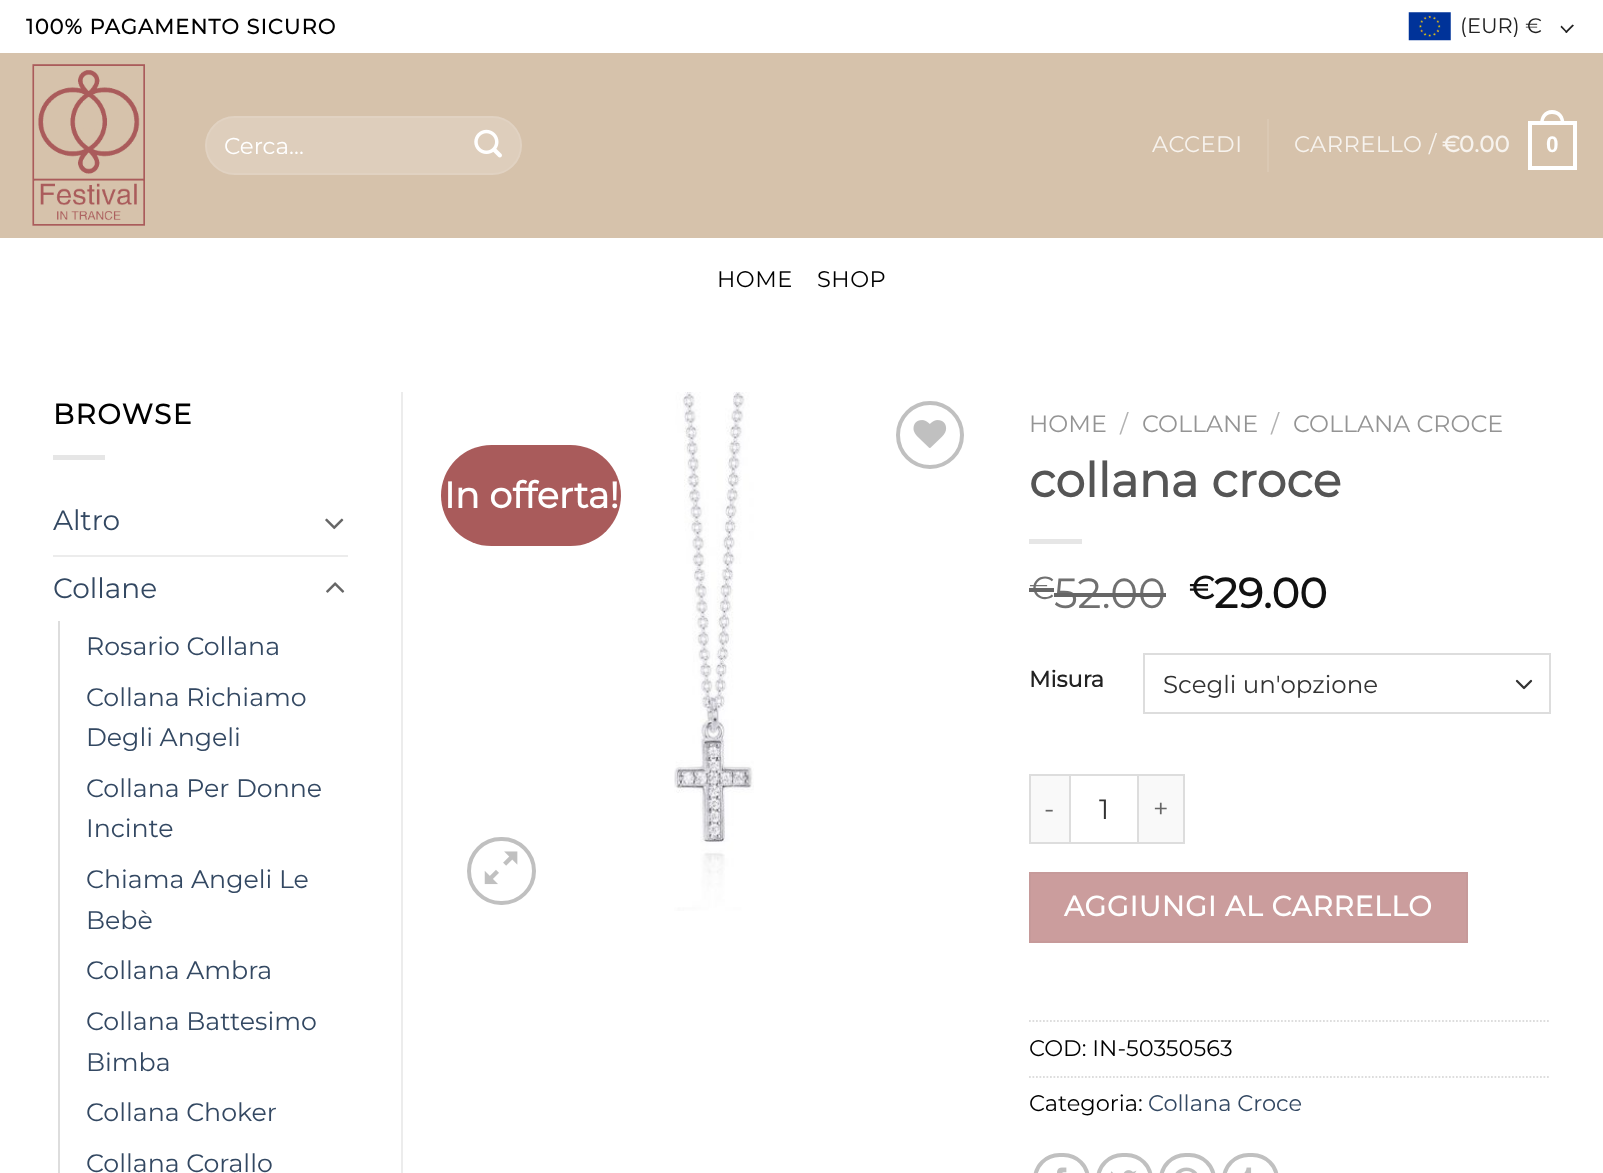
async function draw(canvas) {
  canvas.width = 1603;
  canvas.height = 1173;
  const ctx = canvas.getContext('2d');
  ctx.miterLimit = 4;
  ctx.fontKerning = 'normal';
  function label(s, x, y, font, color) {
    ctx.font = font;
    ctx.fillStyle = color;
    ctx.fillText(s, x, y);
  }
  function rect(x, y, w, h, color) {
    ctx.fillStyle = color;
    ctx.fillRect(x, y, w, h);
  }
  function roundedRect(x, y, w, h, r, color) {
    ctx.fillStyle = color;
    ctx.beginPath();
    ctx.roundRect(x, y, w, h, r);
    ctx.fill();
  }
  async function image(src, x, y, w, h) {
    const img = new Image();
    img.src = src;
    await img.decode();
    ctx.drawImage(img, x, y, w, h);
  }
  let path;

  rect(0, 0, 1603, 1173, '#fff');
  ctx.letterSpacing = '1.05px';
  label('100% PAGAMENTO SICURO', 26, 34, 'bold 21px Montserrat', '#000');
  await image('assets/img1.png', 1408, 12, 43, 29);
  ctx.letterSpacing = '0px';
  label('(EUR) €', 1460, 33, '100 21px Montserrat', '#222');
  ctx.fillStyle = '#212121';
  path = new Path2D('M1572.5 24.5L1574 25.5L1566.5 33L1565 32Z');
  ctx.fill(path);
  path = new Path2D('M1561.5 25.5L1567.5 32L1566.5 33L1560.5 27Z');
  ctx.fill(path);
  rect(0, 53, 1603, 185, '#d6c2ab');
  await image('assets/img2.png', 32, 64, 113, 162);
  roundedRect(205, 116, 317, 59, 29.5, '#decebc');
  ctx.beginPath();
  ctx.roundRect(206, 117, 315, 57, 28.5);
  ctx.strokeStyle = '#ffffff17';
  ctx.lineWidth = 2;
  ctx.stroke();
  label('Cerca…', 224, 154, '100 23px Montserrat', '#fff');
  await image('assets/img3.png', 474, 129, 28, 29);
  ctx.letterSpacing = '0.5px';
  label('ACCEDI', 1152, 152, '100 22.5px Montserrat', '#f7f3ee');
  rect(1267, 119, 2, 53, '#dac8b3');
  label('CARRELLO /', 1294, 152, '100 22.5px Montserrat', '#f7f3ee');
  label('€', 1442, 152, 'bold 22.5px Montserrat', '#f7f3ee');
  label('0.00', 1459, 152, 'bold 22.5px Montserrat', '#f7f3ee');
  ctx.strokeStyle = '#fff';
  ctx.lineWidth = 4;
  ctx.strokeRect(1530, 123, 45, 45);
  ctx.fillStyle = '#fff';
  path = new Path2D('M1552 110C1560.5 110 1564.5 116.5 1564.5 124H1540C1540 116.5 1544 110 1552 110ZM1552 114C1558.5 114 1561 118.5 1561 124H1543.5C1543.5 118.5 1546 114 1552 114Z');
  ctx.fill(path, 'evenodd');
  label('0', 1546, 152, 'bold 22.5px Liberation Sans', '#fff');
  label('HOME', 717, 287, '100 22.5px Montserrat', '#000');
  label('SHOP', 817, 287, '100 22.5px Montserrat', '#000');
  ctx.letterSpacing = '1.5px';
  label('BROWSE', 53, 424, 'bold 28px Montserrat', '#000');
  rect(53, 455, 52, 5, '#e6e6e6');
  ctx.letterSpacing = '0px';
  label('Altro', 53, 530, '100 28px Montserrat', '#334862');
  await image('assets/img4.png', 325, 518, 19, 12);
  rect(53, 555, 295, 2, '#ececec');
  label('Collane', 53, 598, '100 28px Montserrat', '#334862');
  await image('assets/img5.png', 326, 582, 19, 11);
  rect(58, 621, 2, 552, '#ddd');
  label('Rosario Collana', 86, 655, '100 25.25px Montserrat', '#334862');
  label('Collana Richiamo', 86, 706, '100 25.25px Montserrat', '#334862');
  label('Degli Angeli', 86, 746, '100 25.25px Montserrat', '#334862');
  label('Collana Per Donne', 86, 797, '100 25.25px Montserrat', '#334862');
  label('Incinte', 86, 837, '100 25.25px Montserrat', '#334862');
  label('Chiama Angeli Le', 86, 888, '100 25.25px Montserrat', '#334862');
  label('Bebè', 86, 929, '100 25.25px Montserrat', '#334862');
  label('Collana Ambra', 86, 979, '100 25.25px Montserrat', '#334862');
  label('Collana Battesimo', 86, 1030, '100 25.25px Montserrat', '#334862');
  label('Bimba', 86, 1071, '100 25.25px Montserrat', '#334862');
  label('Collana Choker', 86, 1121, '100 25.25px Montserrat', '#334862');
  label('Collana Corallo', 86, 1172, '100 25.25px Montserrat', '#334862');
  rect(401, 392, 2, 781, '#ececec');
  await image('assets/img6.png', 674, 392, 80, 519);
  ctx.beginPath();
  ctx.arc(930, 435, 32, 0, 2 * Math.PI);
  ctx.strokeStyle = '#c0c0c0';
  ctx.stroke();
  await image('assets/img7.png', 913, 420, 34, 28);
  roundedRect(441, 445, 180, 101, 50.5, '#a95b5b');
  label('In offerta!', 444, 508, 'bold 36.5px Montserrat', '#fff');
  ctx.beginPath();
  ctx.roundRect(469, 839, 65, 64, 32);
  ctx.stroke();
  await image('assets/img8.png', 484, 851, 34, 34);
  label('HOME', 1029, 432, '100 23.75px Montserrat', '#949494');
  label('/', 1120, 432, '100 23.75px Montserrat', '#b2b2b2');
  label('COLLANE', 1142, 432, '100 23.75px Montserrat', '#949494');
  label('/', 1271, 432, '100 23.75px Montserrat', '#b2b2b2');
  label('COLLANA CROCE', 1293, 432, '100 23.75px Montserrat', '#949494');
  label('collana croce', 1029, 497, 'bold 47.5px Montserrat', '#555');
  rect(1029, 539, 53, 5, '#e6e6e6');
  label('€', 1029, 599, '100 32px Montserrat', '#707070');
  rect(1029, 588, 25, 4, '#666');
  label('52.00', 1054, 608, '100 42px Montserrat', '#707070');
  rect(1054, 593, 112, 4, '#666');
  label('€', 1189, 599, 'bold 32px Montserrat', '#111');
  label('29.00', 1214, 608, 'bold 42px Montserrat', '#111');
  label('Misura', 1029, 687, 'bold 22.5px Montserrat', '#222');
  path = new Path2D('M1517 681L1524 688L1531 681');
  ctx.strokeStyle = '#333';
  ctx.lineWidth = 2.3;
  ctx.lineCap = 'round';
  ctx.lineJoin = 'round';
  ctx.stroke(path);
  ctx.strokeStyle = '#ddd';
  ctx.lineWidth = 2;
  ctx.lineJoin = 'miter';
  ctx.strokeRect(1144, 654, 406, 59);
  label('Scegli un\'opzione', 1163, 693, '100 24.5px Montserrat', '#333');
  rect(1031, 776, 38, 66, '#f9f9f9');
  rect(1029, 774, 40, 2, '#ddd');
  rect(1029, 842, 40, 2, '#ddd');
  rect(1029, 774, 2, 70, '#ddd');
  ctx.letterSpacing = '1px';
  label('-', 1044, 818, '100 27px Montserrat', '#666');
  ctx.strokeRect(1070, 775, 68, 68);
  ctx.letterSpacing = '0px';
  label('1', 1099, 819, '100 28px Montserrat', '#333');
  rect(1139, 776, 44, 66, '#f9f9f9');
  rect(1139, 774, 46, 2, '#ddd');
  rect(1183, 774, 2, 70, '#ddd');
  rect(1139, 842, 46, 2, '#ddd');
  ctx.letterSpacing = '1px';
  label('+', 1153, 818, '100 27px Montserrat', '#666');
  ctx.fillStyle = '#cb9d9d';
  ctx.beginPath();
  ctx.rect(1030, 873, 437, 69);
  ctx.fill();
  ctx.strokeStyle = '#c69a9a';
  ctx.stroke();
  ctx.letterSpacing = '0.8px';
  label('AGGIUNGI AL CARRELLO', 1064, 916, 'bold 28px Montserrat', '#fff');
  path = new Path2D('M1029 1021H1550.5');
  ctx.strokeStyle = '#ddd';
  ctx.lineWidth = 1.8;
  ctx.lineCap = 'butt';
  ctx.setLineDash([1.75, 1.75]);
  ctx.stroke(path);
  ctx.letterSpacing = '0px';
  label('COD: IN-50350563', 1029, 1056, '100 22.5px Montserrat', '#000');
  path = new Path2D('M1029 1077H1550.5');
  ctx.stroke(path);
  label('Categoria:', 1029, 1111, '100 22.5px Montserrat', '#000');
  label('Collana Croce', 1148, 1111, '100 22.5px Montserrat', '#334862');
  ctx.beginPath();
  ctx.roundRect(1035, 1155, 53, 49, 26.5);
  ctx.strokeStyle = '#c0c0c0';
  ctx.lineWidth = 4;
  ctx.setLineDash([]);
  ctx.stroke();
  await image('assets/img9.png', 1057, 1167, 10, 6);
  ctx.beginPath();
  ctx.roundRect(1098, 1155, 53, 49, 26.5);
  ctx.stroke();
  await image('assets/img10.png', 1110, 1170, 27, 3);
  ctx.beginPath();
  ctx.roundRect(1161, 1155, 53, 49, 26.5);
  ctx.stroke();
  await image('assets/img11.png', 1175, 1167, 23, 6);
  ctx.beginPath();
  ctx.roundRect(1224, 1155, 53, 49, 26.5);
  ctx.stroke();
  await image('assets/img12.png', 1244, 1167, 8, 6);
}

draw(document.querySelector('canvas'));
